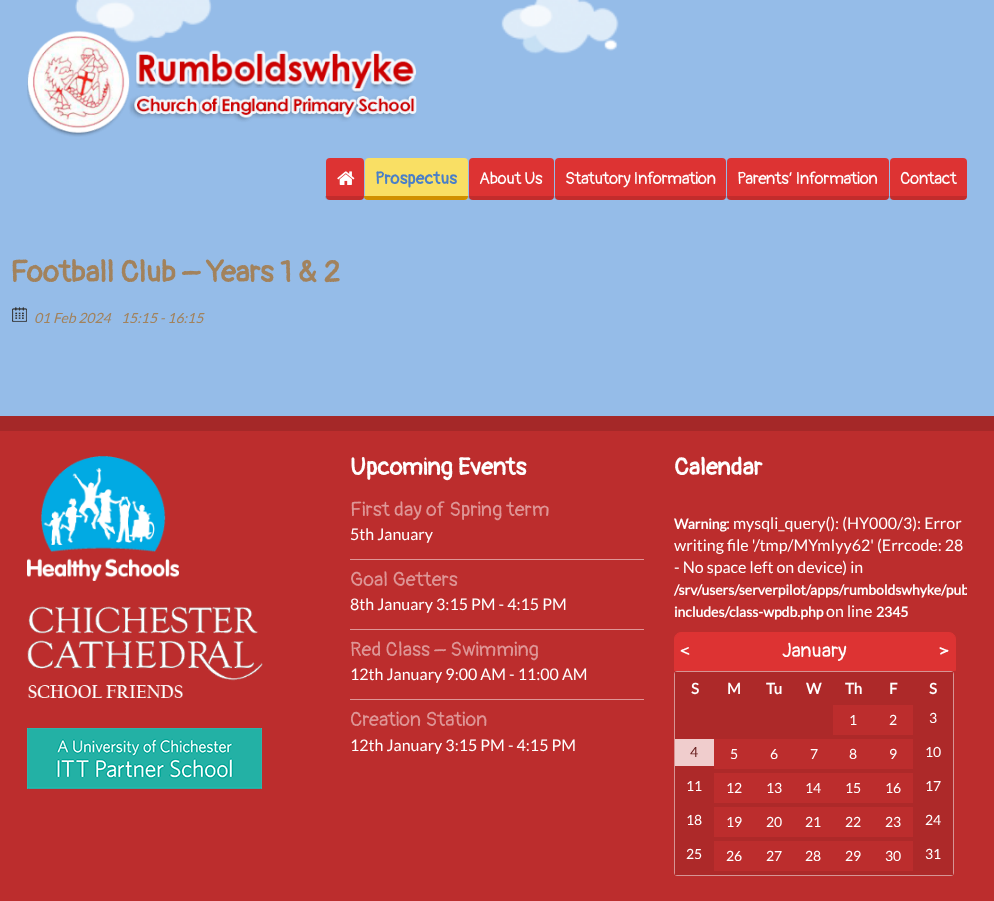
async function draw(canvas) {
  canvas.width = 994;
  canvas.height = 901;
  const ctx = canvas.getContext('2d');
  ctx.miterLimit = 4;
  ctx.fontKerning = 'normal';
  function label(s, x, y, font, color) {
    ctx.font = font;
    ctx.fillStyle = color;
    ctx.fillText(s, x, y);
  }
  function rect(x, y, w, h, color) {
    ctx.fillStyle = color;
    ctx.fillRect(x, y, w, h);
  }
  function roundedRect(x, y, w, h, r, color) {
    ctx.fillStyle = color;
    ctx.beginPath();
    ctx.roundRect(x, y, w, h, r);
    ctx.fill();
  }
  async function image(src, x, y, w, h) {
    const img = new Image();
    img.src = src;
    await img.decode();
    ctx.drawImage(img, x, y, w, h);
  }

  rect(0, 0, 994, 901, '#95bce8');
  await image('assets/img1.png', 75, 0, 544, 54);
  await image('assets/img2.png', 27, 30, 390, 107);
  roundedRect(326, 158, 38, 42, 4, '#d33');
  await image('assets/img3.png', 337, 171, 18, 14);
  ctx.fillStyle = '#0000001f';
  ctx.beginPath();
  ctx.roundRect(325, 196, 39, 4, [0, 0, 4, 4]);
  ctx.fill();
  roundedRect(365, 158, 103, 42, 4, '#f9df64');
  ctx.letterSpacing = '0.25px';
  label('Prospectus', 375, 184, 'bold 17px Pangolin', '#497fc8');
  ctx.fillStyle = '#d09000';
  ctx.beginPath();
  ctx.roundRect(364, 196, 104, 4, [0, 0, 4, 4]);
  ctx.fill();
  roundedRect(469, 158, 85, 42, 4, '#d33');
  ctx.letterSpacing = '-0.4px';
  label('About Us', 479, 184, '17px Pangolin', '#fff');
  ctx.fillStyle = '#0000001f';
  ctx.beginPath();
  ctx.roundRect(468, 196, 86, 4, [0, 0, 4, 4]);
  ctx.fill();
  roundedRect(555, 158, 171, 42, 4, '#d33');
  label('Statutory Information', 565, 184, '17px Pangolin', '#fff');
  ctx.fillStyle = '#0000001f';
  ctx.beginPath();
  ctx.roundRect(554, 196, 172, 4, [0, 0, 4, 4]);
  ctx.fill();
  roundedRect(727, 158, 162, 42, 4, '#d33');
  label('Parents’ Information', 737, 184, '17px Pangolin', '#fff');
  ctx.fillStyle = '#0000001f';
  ctx.beginPath();
  ctx.roundRect(726, 196, 163, 4, [0, 0, 4, 4]);
  ctx.fill();
  roundedRect(890, 158, 77, 42, 4, '#d33');
  label('Contact', 900, 184, '17px Pangolin', '#fff');
  ctx.fillStyle = '#0000001f';
  ctx.beginPath();
  ctx.roundRect(889, 196, 78, 4, [0, 0, 4, 4]);
  ctx.fill();
  ctx.letterSpacing = '0px';
  label('Football Club – Years 1 & 2', 10, 282, 'bold 30px Pangolin', '#a2825c');
  await image('assets/img4.png', 12, 307, 15, 15);
  label('01 Feb 2024', 34, 323, 'italic 14px Lato', '#a2825c');
  label('15:15 - 16:15', 121, 323, 'italic 14px Lato', '#a2825c');
  rect(0, 431, 994, 470, '#bc2d2d');
  rect(0, 416, 994, 15, '#a52828');
  await image('assets/img5.png', 27, 456, 152, 125);
  await image('assets/img6.png', 27, 606, 236, 92);
  await image('assets/img7.png', 27, 728, 235, 61);
  label('Upcoming Events', 350, 475, 'bold 24px Pangolin', '#fff');
  label('First day of Spring term', 350, 516, '20px Pangolin', '#de9696');
  label('5th January', 350, 540, '16px Lato', '#fff');
  rect(350, 559, 294, 1, '#de9696');
  label('Goal Getters', 350, 586, '20px Pangolin', '#de9696');
  label('8th January 3:15 PM - 4:15 PM', 350, 610, '16px Lato', '#fff');
  rect(350, 629, 294, 1, '#de9696');
  label('Red Class – Swimming', 350, 656, '20px Pangolin', '#de9696');
  label('12th January 9:00 AM - 11:00 AM', 350, 680, '16px Lato', '#fff');
  rect(350, 699, 294, 1, '#de9696');
  label('Creation Station', 350, 726, '20px Pangolin', '#de9696');
  label('12th January 3:15 PM - 4:15 PM', 350, 751, '16px Lato', '#fff');
  label('Calendar', 674, 475, 'bold 24px Pangolin', '#fff');
  label('Warning', 674, 529, 'bold 14px Lato', '#fff');
  label(': mysqli_query(): (HY000/3): Error', 726, 529, '16px Lato', '#fff');
  label('writing file \'/tmp/MYmIyy62\' (Errcode: 28', 674, 551, '16px Lato', '#fff');
  label('- No space left on device) in', 674, 573, '16px Lato', '#fff');
  ctx.save();
  ctx.beginPath();
  ctx.rect(0, 431, 967, 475);
  ctx.clip();
  label('/srv/users/serverpilot/apps/rumboldswhyke/pub', 674, 595, 'bold 14px Lato', '#fff');
  ctx.restore();
  label('includes/class-wpdb.php', 674, 617, 'bold 14px Lato', '#fff');
  label('on line', 826, 617, '16px Lato', '#fff');
  label('2345', 876, 617, 'bold 14px Lato', '#fff');
  ctx.fillStyle = '#d33';
  ctx.beginPath();
  ctx.roundRect(674.5, 632.5, 281, 38, [6.5, 6.5, 0, 0]);
  ctx.fill();
  ctx.strokeStyle = '#d33';
  ctx.stroke();
  label('<', 680, 656, '18px Pangolin', '#fff');
  label('January', 782, 657, '20px Pangolin', '#fff');
  label('>', 939, 656, '18px Pangolin', '#fff');
  ctx.beginPath();
  ctx.roundRect(674.5, 671.5, 279, 204, 2.5);
  ctx.strokeStyle = '#d69494';
  ctx.stroke();
  rect(675, 672, 278, 33, '#ad2929');
  label('S', 691, 694, 'bold 15px Lato', '#fff');
  label('M', 727, 694, 'bold 15px Lato', '#fff');
  label('Tu', 766, 694, 'bold 15px Lato', '#fff');
  label('W', 806, 694, 'bold 15px Lato', '#fff');
  label('Th', 845, 694, 'bold 15px Lato', '#fff');
  label('F', 889, 694, 'bold 15px Lato', '#fff');
  label('S', 929, 694, 'bold 15px Lato', '#fff');
  rect(675, 705, 158, 34, '#ad2929');
  rect(833, 735, 80, 4, '#ad2929');
  label('1', 849, 725, '14px Lato', '#fff');
  label('2', 889, 725, '14px Lato', '#fff');
  rect(913, 705, 40, 170, '#ad2929');
  label('3', 929, 723, '14px Lato', '#fff');
  rect(675, 739, 39, 27, '#f0cdcd');
  rect(675, 766, 39, 109, '#ad2929');
  label('4', 690, 757, '14px Lato', '#651b1b');
  rect(714, 769, 199, 4, '#ad2929');
  label('5', 730, 759, '14px Lato', '#fff');
  label('6', 770, 759, '14px Lato', '#fff');
  label('7', 810, 759, '14px Lato', '#fff');
  label('8', 849, 759, '14px Lato', '#fff');
  label('9', 889, 759, '14px Lato', '#fff');
  label('10', 925, 757, '14px Lato', '#fff');
  label('11', 686, 791, '14px Lato', '#fff');
  rect(714, 803, 199, 4, '#ad2929');
  label('12', 726, 793, '14px Lato', '#fff');
  label('13', 766, 793, '14px Lato', '#fff');
  label('14', 805, 793, '14px Lato', '#fff');
  label('15', 845, 793, '14px Lato', '#fff');
  label('16', 885, 793, '14px Lato', '#fff');
  label('17', 925, 791, '14px Lato', '#fff');
  label('18', 686, 825, '14px Lato', '#fff');
  rect(714, 837, 199, 4, '#ad2929');
  label('19', 726, 827, '14px Lato', '#fff');
  label('20', 766, 827, '14px Lato', '#fff');
  label('21', 805, 827, '14px Lato', '#fff');
  label('22', 845, 827, '14px Lato', '#fff');
  label('23', 885, 827, '14px Lato', '#fff');
  label('24', 925, 825, '14px Lato', '#fff');
  label('25', 686, 859, '14px Lato', '#fff');
  rect(714, 871, 199, 4, '#ad2929');
  label('26', 726, 861, '14px Lato', '#fff');
  label('27', 766, 861, '14px Lato', '#fff');
  label('28', 805, 861, '14px Lato', '#fff');
  label('29', 845, 861, '14px Lato', '#fff');
  label('30', 885, 861, '14px Lato', '#fff');
  label('31', 925, 859, '14px Lato', '#fff');
}

draw(document.querySelector('canvas'));
